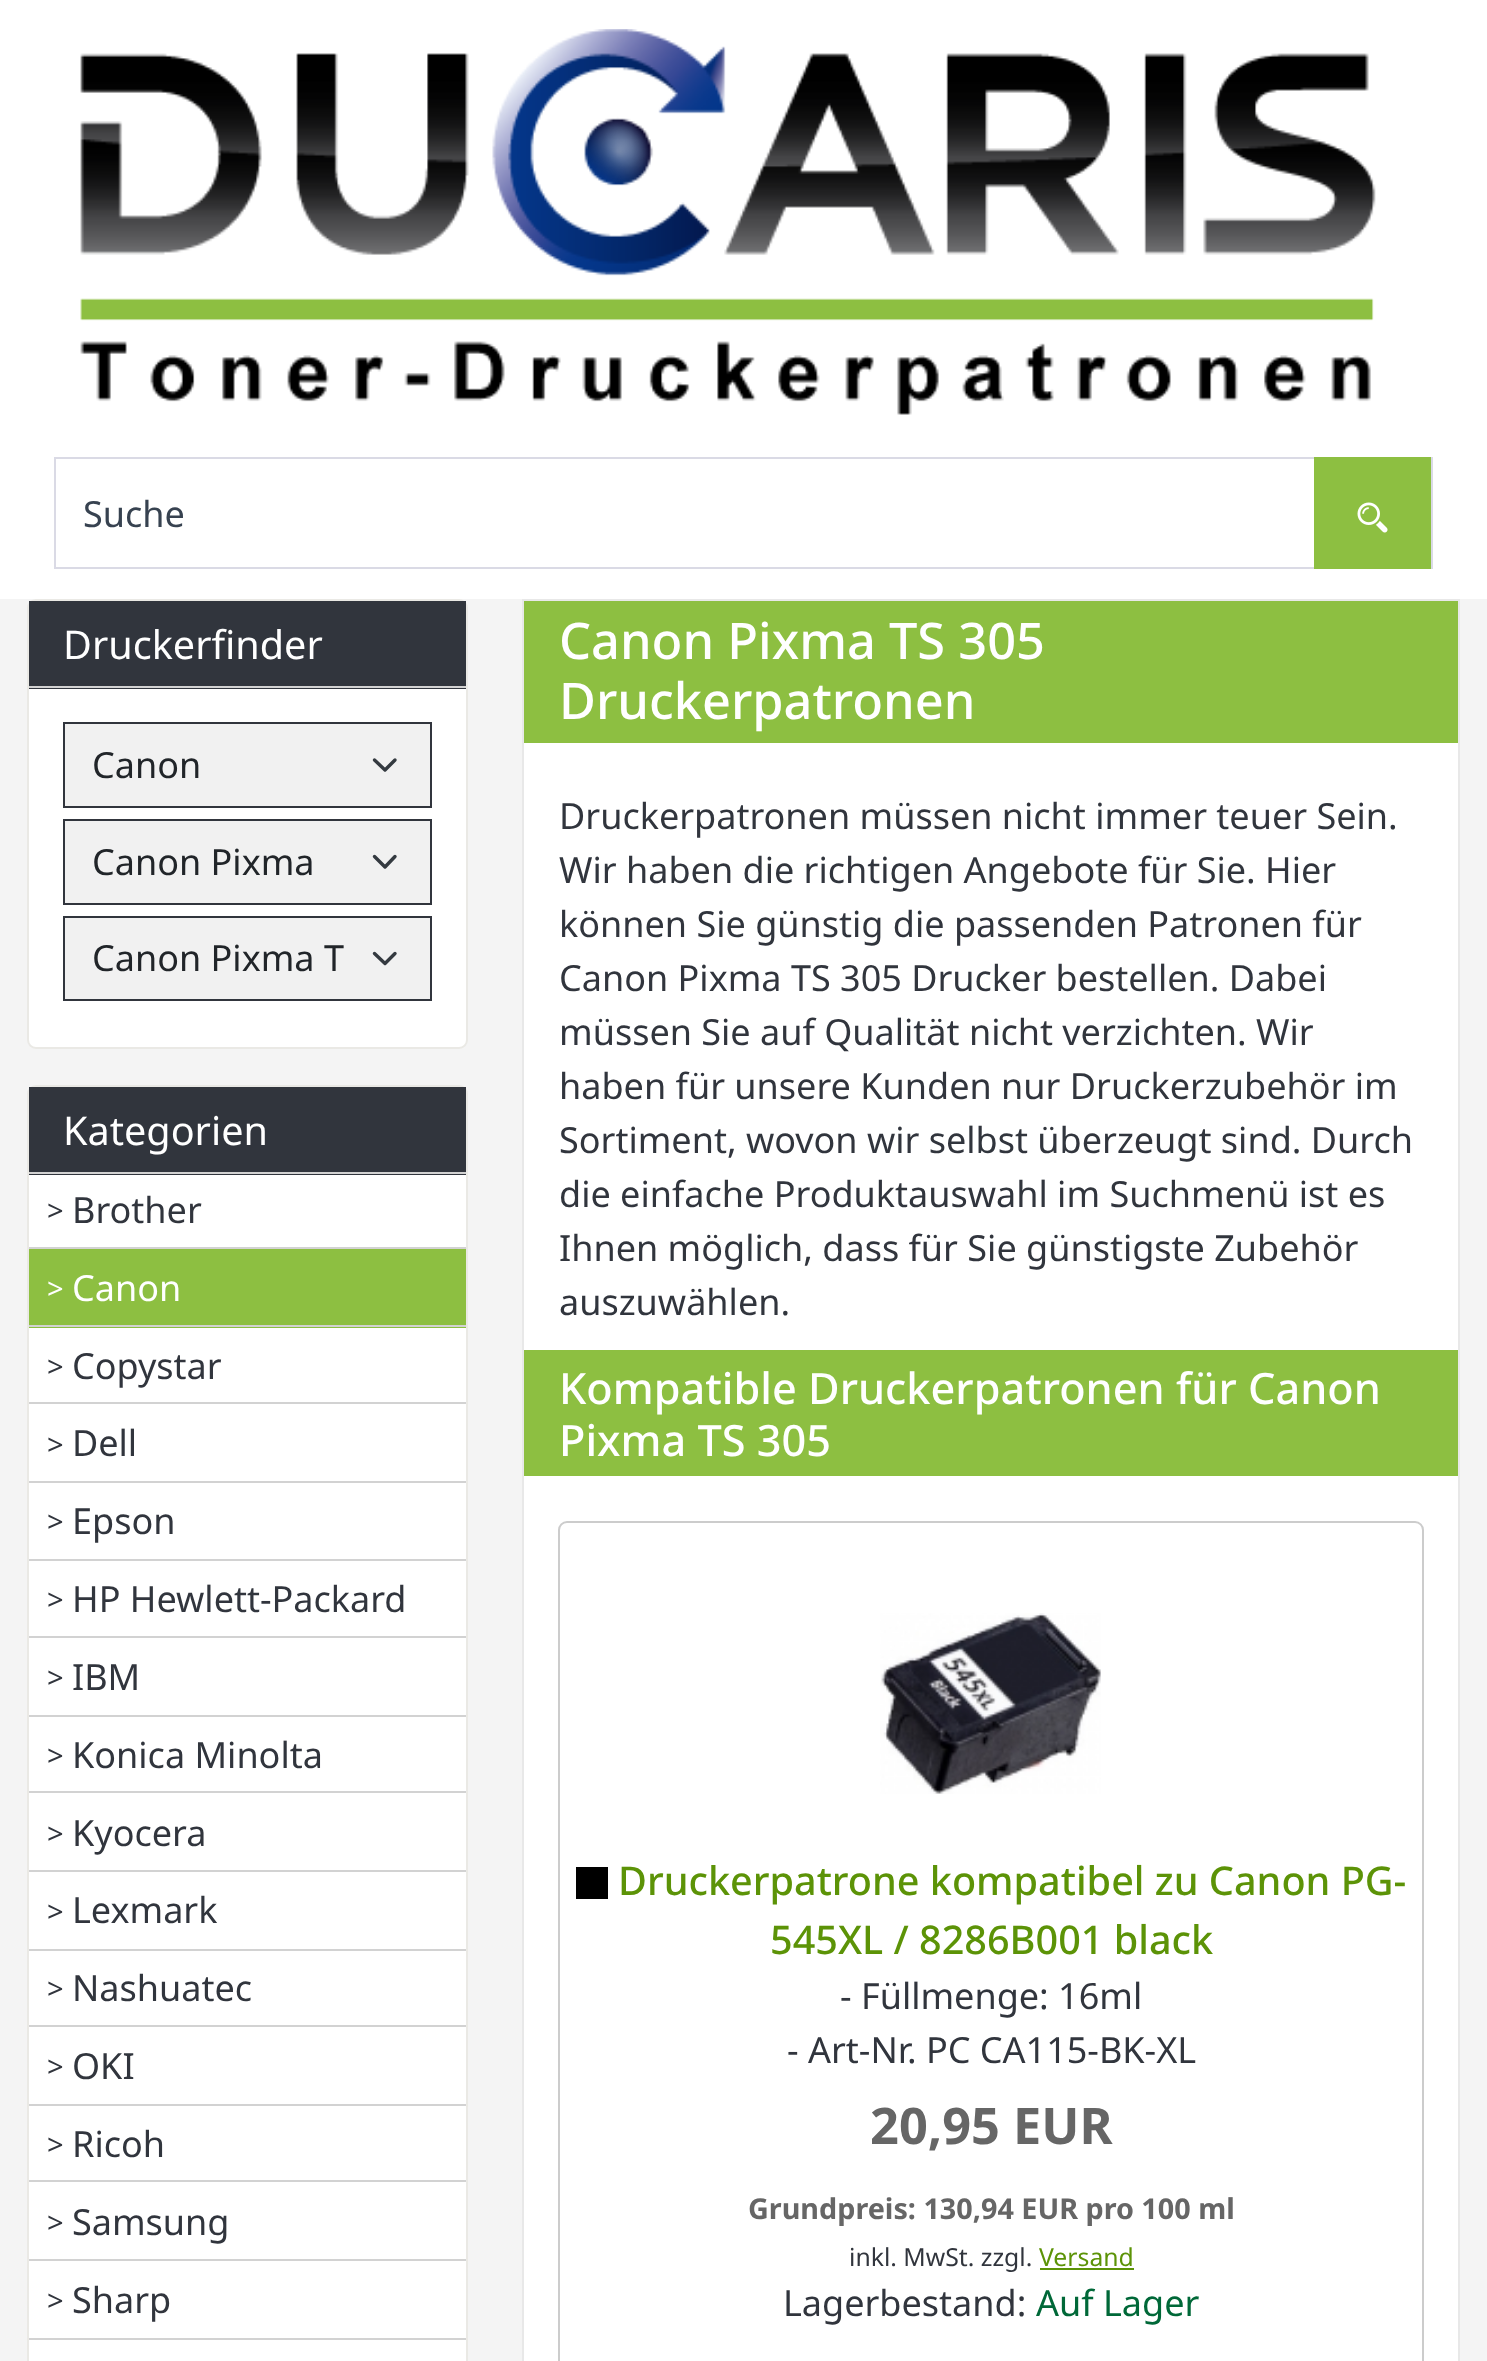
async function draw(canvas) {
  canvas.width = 1487;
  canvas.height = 2361;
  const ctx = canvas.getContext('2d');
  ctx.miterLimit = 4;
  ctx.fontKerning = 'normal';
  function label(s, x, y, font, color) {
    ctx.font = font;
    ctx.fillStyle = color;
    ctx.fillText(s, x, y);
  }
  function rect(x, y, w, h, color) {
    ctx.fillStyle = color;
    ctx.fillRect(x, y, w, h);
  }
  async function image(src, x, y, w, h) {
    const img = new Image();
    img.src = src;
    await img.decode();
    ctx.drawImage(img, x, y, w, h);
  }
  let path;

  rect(0, 0, 1487, 2361, '#f4f4f4');
  rect(0, 0, 1487, 599, '#fff');
  await image('assets/img1.png', 80, 29, 1296, 386);
  ctx.strokeStyle = '#dadae5';
  ctx.lineWidth = 2;
  ctx.strokeRect(55, 458, 1377, 110);
  label('Suche', 83, 527, '36px Noto Sans', '#374250');
  rect(1314, 457, 117, 112, '#8dbf41');
  await image('assets/img2.png', 1357, 502, 31, 31);
  ctx.fillStyle = '#fff';
  ctx.beginPath();
  ctx.roundRect(28, 600, 439, 448, 8);
  ctx.fill();
  ctx.strokeStyle = '#eae9e5';
  ctx.stroke();
  rect(29, 601, 437, 88, '#31353d');
  rect(29, 686, 437, 2, '#d2d2d2');
  label('Druckerfinder', 63, 659, '39.6px Noto Sans', '#fff');
  rect(65, 724, 365, 82, '#f1f1f1');
  path = new Path2D('M374.5 760L385 770L395 760');
  ctx.strokeStyle = '#343a40';
  ctx.lineWidth = 3.4;
  ctx.lineCap = 'round';
  ctx.lineJoin = 'round';
  ctx.stroke(path);
  ctx.strokeStyle = '#31353d';
  ctx.lineWidth = 2;
  ctx.lineJoin = 'miter';
  ctx.strokeRect(64, 723, 367, 84);
  label('Canon', 92, 778, '36px Noto Sans', '#212529');
  rect(65, 821, 365, 82, '#f1f1f1');
  path = new Path2D('M374.5 856.5L385 867L395 856.5');
  ctx.strokeStyle = '#343a40';
  ctx.lineWidth = 3.4;
  ctx.lineJoin = 'round';
  ctx.stroke(path);
  ctx.strokeStyle = '#31353d';
  ctx.lineWidth = 2;
  ctx.lineJoin = 'miter';
  ctx.strokeRect(64, 820, 367, 84);
  label('Canon Pixma', 92, 875, '36px Noto Sans', '#212529');
  rect(65, 918, 365, 81, '#f1f1f1');
  path = new Path2D('M374.5 953.5L385 963.5L395 953.5');
  ctx.strokeStyle = '#343a40';
  ctx.lineWidth = 3.4;
  ctx.lineJoin = 'round';
  ctx.stroke(path);
  ctx.strokeStyle = '#31353d';
  ctx.lineWidth = 2;
  ctx.lineJoin = 'miter';
  ctx.strokeRect(64, 917, 367, 83);
  label('Canon Pixma T', 92, 971, '36px Noto Sans', '#212529');
  ctx.fillStyle = '#fff';
  ctx.beginPath();
  ctx.roundRect(28, 1086, 439, 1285, 8);
  ctx.fill();
  ctx.strokeStyle = '#eae9e5';
  ctx.stroke();
  rect(29, 1087, 437, 88, '#31353d');
  rect(29, 1172, 437, 2, '#d2d2d2');
  label('Kategorien', 63, 1145, '39.6px Noto Sans', '#fff');
  rect(29, 1247, 437, 2, '#d2d2d2');
  label('>', 47, 1221, '29px Noto Sans', '#31353d');
  label('Brother', 72, 1223, '36px Noto Sans', '#31353d');
  rect(29, 1249, 437, 79, '#8dbf41');
  rect(29, 1325, 437, 2, '#d2d2d2');
  label('>', 47, 1299, '29px Noto Sans', '#fff');
  label('Canon', 72, 1301, '36px Noto Sans', '#fff');
  rect(29, 1402, 437, 2, '#d2d2d2');
  label('>', 47, 1377, '29px Noto Sans', '#31353d');
  label('Copystar', 72, 1379, '36px Noto Sans', '#31353d');
  rect(29, 1481, 437, 2, '#d2d2d2');
  label('>', 47, 1455, '29px Noto Sans', '#31353d');
  label('Dell', 72, 1456, '36px Noto Sans', '#31353d');
  rect(29, 1559, 437, 2, '#d2d2d2');
  label('>', 47, 1532, '29px Noto Sans', '#31353d');
  label('Epson', 72, 1534, '36px Noto Sans', '#31353d');
  rect(29, 1636, 437, 2, '#d2d2d2');
  label('>', 47, 1610, '29px Noto Sans', '#31353d');
  label('HP Hewlett-Packard', 72, 1612, '36px Noto Sans', '#31353d');
  rect(29, 1715, 437, 2, '#d2d2d2');
  label('>', 47, 1688, '29px Noto Sans', '#31353d');
  label('IBM', 72, 1690, '36px Noto Sans', '#31353d');
  rect(29, 1791, 437, 2, '#d2d2d2');
  label('>', 47, 1766, '29px Noto Sans', '#31353d');
  label('Konica Minolta', 72, 1768, '36px Noto Sans', '#31353d');
  rect(29, 1870, 437, 2, '#d2d2d2');
  label('>', 47, 1844, '29px Noto Sans', '#31353d');
  label('Kyocera', 72, 1846, '36px Noto Sans', '#31353d');
  rect(29, 1949, 437, 2, '#d2d2d2');
  label('>', 47, 1922, '29px Noto Sans', '#31353d');
  label('Lexmark', 72, 1923, '36px Noto Sans', '#31353d');
  rect(29, 2025, 437, 2, '#d2d2d2');
  label('>', 47, 1999, '29px Noto Sans', '#31353d');
  label('Nashuatec', 72, 2001, '36px Noto Sans', '#31353d');
  rect(29, 2104, 437, 2, '#d2d2d2');
  label('>', 47, 2077, '29px Noto Sans', '#31353d');
  label('OKI', 72, 2079, '36px Noto Sans', '#31353d');
  rect(29, 2180, 437, 2, '#d2d2d2');
  label('>', 47, 2155, '29px Noto Sans', '#31353d');
  label('Ricoh', 72, 2157, '36px Noto Sans', '#31353d');
  rect(29, 2259, 437, 2, '#d2d2d2');
  label('>', 47, 2233, '29px Noto Sans', '#31353d');
  label('Samsung', 72, 2235, '36px Noto Sans', '#31353d');
  rect(29, 2338, 437, 2, '#d2d2d2');
  label('>', 47, 2311, '29px Noto Sans', '#31353d');
  label('Sharp', 72, 2313, '36px Noto Sans', '#31353d');
  rect(524, 743, 934, 1618, '#fff');
  ctx.strokeStyle = '#e8e8e8';
  ctx.strokeRect(523, 600, 936, 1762);
  rect(524, 601, 934, 142, '#8dbf41');
  label('Canon Pixma TS 305', 559, 659, '500 50.5px Noto Sans', '#fff');
  label('Druckerpatronen', 559, 719, '500 50.5px Noto Sans', '#fff');
  label('Druckerpatronen müssen nicht immer teuer Sein.', 559, 829, '36px Noto Sans', '#31353d');
  label('Wir haben die richtigen Angebote für Sie. Hier', 559, 883, '36px Noto Sans', '#31353d');
  label('können Sie günstig die passenden Patronen für', 559, 937, '36px Noto Sans', '#31353d');
  label('Canon Pixma TS 305 Drucker bestellen. Dabei', 559, 991, '36px Noto Sans', '#31353d');
  label('müssen Sie auf Qualität nicht verzichten. Wir', 559, 1045, '36px Noto Sans', '#31353d');
  label('haben für unsere Kunden nur Druckerzubehör im', 559, 1099, '36px Noto Sans', '#31353d');
  label('Sortiment, wovon wir selbst überzeugt sind. Durch', 559, 1153, '36px Noto Sans', '#31353d');
  label('die einfache Produktauswahl im Suchmenü ist es', 559, 1207, '36px Noto Sans', '#31353d');
  label('Ihnen möglich, dass für Sie günstigste Zubehör', 559, 1261, '36px Noto Sans', '#31353d');
  label('auszuwählen.', 559, 1315, '36px Noto Sans', '#31353d');
  rect(524, 1350, 934, 126, '#8dbf41');
  label('Kompatible Druckerpatronen für Canon', 559, 1404, '500 43.25px Noto Sans', '#fff');
  label('Pixma TS 305', 559, 1456, '500 43.25px Noto Sans', '#fff');
  ctx.beginPath();
  ctx.roundRect(559, 1522, 864, 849, 8);
  ctx.strokeStyle = '#ccc';
  ctx.stroke();
  await image('assets/img3.png', 880, 1613, 221, 181);
  label('Druckerpatrone kompatibel zu Canon PG-', 618, 1895, '500 39.6px Noto Sans', '#5c9307');
  rect(576, 1867, 32, 32, '#000');
  label('545XL / 8286B001 black', 770, 1954, '500 39.6px Noto Sans', '#5c9307');
  label('- Füllmenge: 16ml', 840, 2009, '36px Noto Sans', '#31353d');
  label('- Art-Nr. PC CA115-BK-XL', 787, 2063, '36px Noto Sans', '#31353d');
  label('20,95 EUR', 870, 2144, 'bold 50.5px Noto Sans', '#666');
  label('Grundpreis: 130,94 EUR pro 100 ml', 748, 2219, 'bold 28.75px Noto Sans', '#666');
  label('inkl. MwSt. zzgl.', 849, 2266, '24.75px Noto Sans', '#31353d');
  label('Versand', 1039, 2266, '24.75px Noto Sans', '#5c9307');
  rect(1040, 2268, 94, 2, '#5c9307');
  label('Lagerbestand:', 783, 2316, '36px Noto Sans', '#31353d');
  label('Auf Lager', 1036, 2316, '36px Noto Sans', '#006838');
}

draw(document.querySelector('canvas'));
